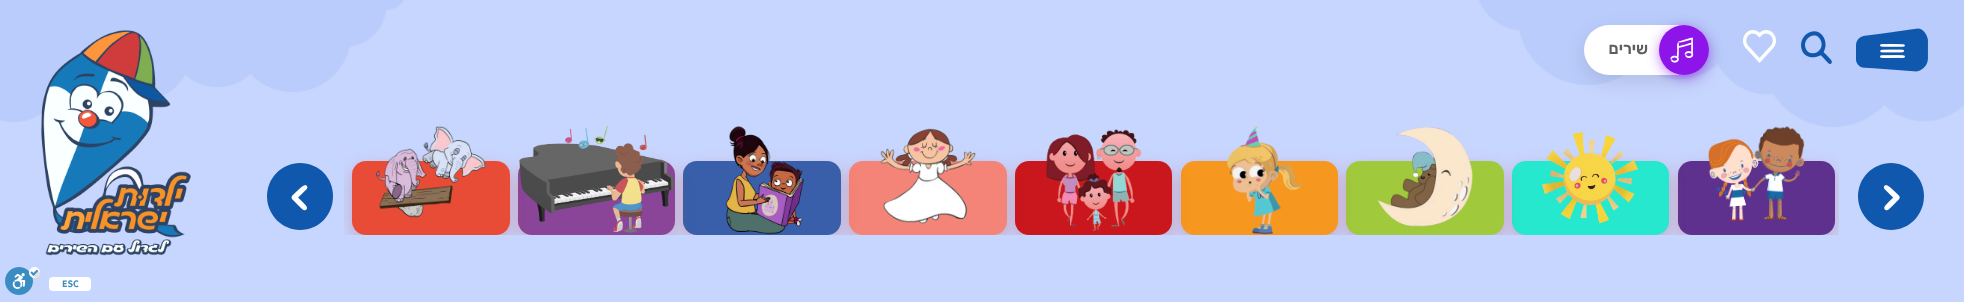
async function draw(canvas) {
  canvas.width = 1964;
  canvas.height = 302;
  const ctx = canvas.getContext('2d');
  ctx.miterLimit = 4;
  ctx.fontKerning = 'normal';
  function label(s, x, y, font, color) {
    ctx.font = font;
    ctx.fillStyle = color;
    ctx.fillText(s, x, y);
  }
  function rect(x, y, w, h, color) {
    ctx.fillStyle = color;
    ctx.fillRect(x, y, w, h);
  }
  function roundedRect(x, y, w, h, r, color) {
    ctx.fillStyle = color;
    ctx.beginPath();
    ctx.roundRect(x, y, w, h, r);
    ctx.fill();
  }
  async function image(src, x, y, w, h) {
    const img = new Image();
    img.src = src;
    await img.decode();
    ctx.drawImage(img, x, y, w, h);
  }
  let path;

  rect(0, 0, 1964, 302, '#c7d6ff');
  await image('assets/img1.png', 0, 0, 1964, 127);
  await image('assets/img2.png', 1856, 28, 72, 44);
  await image('assets/img3.png', 1801, 31, 31, 33);
  await image('assets/img4.png', 1743, 30, 33, 33);
  ctx.fillStyle = '#0000001a';
  ctx.filter = 'blur(9.5px)';
  ctx.beginPath();
  ctx.roundRect(1584, 32, 125, 50, 25);
  ctx.fill();
  ctx.filter = 'none';
  roundedRect(1584, 25, 125, 50, 25, '#fff');
  ctx.fillStyle = '#8e15ea';
  ctx.filter = 'blur(7.5px)';
  ctx.beginPath();
  ctx.roundRect(1663, 32, 42, 42, 21);
  ctx.fill();
  ctx.filter = 'none';
  ctx.beginPath();
  ctx.arc(1684, 50, 25, 0, 2 * Math.PI);
  ctx.fill();
  await image('assets/img5.png', 1670, 37, 24, 26);
  ctx.direction = 'rtl';
  label('שירים', 1648, 54, '600 16px Rubik', '#5e5e5e');
  await image('assets/img6.png', 41, 30, 150, 226);
  ctx.fillStyle = '#1058ad';
  path = new Path2D('M1891 230C1873 230 1858 215 1858 196C1858 178 1873 163 1891 163C1909 163 1924 178 1924 196C1924 215 1909 230 1891 230Z');
  ctx.fill(path);
  await image('assets/img7.png', 1883, 185, 17, 26);
  ctx.save();
  ctx.beginPath();
  ctx.rect(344, 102, 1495, 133);
  ctx.clip();
  ctx.fillStyle = '#cc201640';
  ctx.filter = 'blur(8px)';
  ctx.beginPath();
  ctx.roundRect(1678, 167, 157, 74, 14);
  ctx.fill();
  ctx.filter = 'none';
  ctx.restore();
  roundedRect(1678, 161, 157, 74, 14, '#5e318f');
  await image('assets/img8.png', 1708, 126, 97, 95);
  ctx.save();
  ctx.beginPath();
  ctx.rect(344, 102, 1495, 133);
  ctx.clip();
  ctx.fillStyle = '#cc201640';
  ctx.filter = 'blur(8px)';
  ctx.beginPath();
  ctx.roundRect(1512, 167, 157, 74, 14);
  ctx.fill();
  ctx.filter = 'none';
  ctx.restore();
  roundedRect(1512, 161, 157, 74, 14, '#25e8ce');
  await image('assets/img9.png', 1542, 132, 97, 92);
  ctx.save();
  ctx.beginPath();
  ctx.rect(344, 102, 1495, 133);
  ctx.clip();
  ctx.fillStyle = '#cc201640';
  ctx.filter = 'blur(8px)';
  ctx.beginPath();
  ctx.roundRect(1346, 167, 158, 74, 14);
  ctx.fill();
  ctx.filter = 'none';
  ctx.restore();
  roundedRect(1346, 161, 158, 74, 14, '#a0ca3c');
  await image('assets/img10.png', 1377, 127, 96, 100);
  ctx.save();
  ctx.beginPath();
  ctx.rect(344, 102, 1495, 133);
  ctx.clip();
  ctx.fillStyle = '#cc201640';
  ctx.filter = 'blur(8px)';
  ctx.beginPath();
  ctx.roundRect(1181, 167, 157, 74, 14);
  ctx.fill();
  ctx.filter = 'none';
  ctx.restore();
  roundedRect(1181, 161, 157, 74, 14, '#f6971f');
  await image('assets/img11.png', 1226, 126, 76, 109);
  ctx.save();
  ctx.beginPath();
  ctx.rect(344, 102, 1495, 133);
  ctx.clip();
  ctx.fillStyle = '#cc201640';
  ctx.filter = 'blur(8px)';
  ctx.beginPath();
  ctx.roundRect(1015, 167, 157, 74, 14);
  ctx.fill();
  ctx.filter = 'none';
  ctx.restore();
  roundedRect(1015, 161, 157, 74, 14, '#ca171e');
  await image('assets/img12.png', 1046, 129, 96, 102);
  ctx.save();
  ctx.beginPath();
  ctx.rect(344, 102, 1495, 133);
  ctx.clip();
  ctx.fillStyle = '#cc201640';
  ctx.filter = 'blur(8px)';
  ctx.beginPath();
  ctx.roundRect(849, 167, 158, 74, 14);
  ctx.fill();
  ctx.filter = 'none';
  ctx.restore();
  roundedRect(849, 161, 158, 74, 14, '#f48477');
  await image('assets/img13.png', 880, 128, 96, 96);
  ctx.save();
  ctx.beginPath();
  ctx.rect(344, 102, 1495, 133);
  ctx.clip();
  ctx.fillStyle = '#cc201640';
  ctx.filter = 'blur(8px)';
  ctx.beginPath();
  ctx.roundRect(683, 167, 158, 74, 14);
  ctx.fill();
  ctx.filter = 'none';
  ctx.restore();
  roundedRect(683, 161, 158, 74, 14, '#395faa');
  await image('assets/img14.png', 725, 126, 79, 109);
  ctx.save();
  ctx.beginPath();
  ctx.rect(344, 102, 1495, 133);
  ctx.clip();
  ctx.fillStyle = '#cc201640';
  ctx.filter = 'blur(8px)';
  ctx.beginPath();
  ctx.roundRect(518, 167, 157, 74, 14);
  ctx.fill();
  ctx.filter = 'none';
  ctx.restore();
  roundedRect(518, 161, 157, 74, 14, '#8a4599');
  ctx.save();
  ctx.beginPath();
  ctx.rect(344, 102, 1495, 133);
  ctx.clip();
  ctx.fillStyle = '#cc201640';
  ctx.filter = 'blur(8px)';
  ctx.beginPath();
  ctx.roundRect(352, 167, 158, 74, 14);
  ctx.fill();
  ctx.filter = 'none';
  ctx.restore();
  await image('assets/img15.png', 519, 125, 155, 108);
  roundedRect(352, 161, 158, 74, 14, '#e84c37');
  await image('assets/img16.png', 376, 126, 110, 92);
  ctx.fillStyle = '#1058ad';
  path = new Path2D('M300 230C282 230 267 215 267 196C267 178 282 163 300 163C319 163 333 178 333 196C333 215 319 230 300 230Z');
  ctx.fill(path);
  await image('assets/img17.png', 291, 185, 17, 26);
  roundedRect(49, 277, 42, 14, 4, '#fff');
  ctx.direction = 'ltr';
  label('ESC', 62, 287, 'bold 10px Assistant', '#3a8dc2');
  await image('assets/img18.png', 5, 267, 35, 28);
}

draw(document.querySelector('canvas'));
